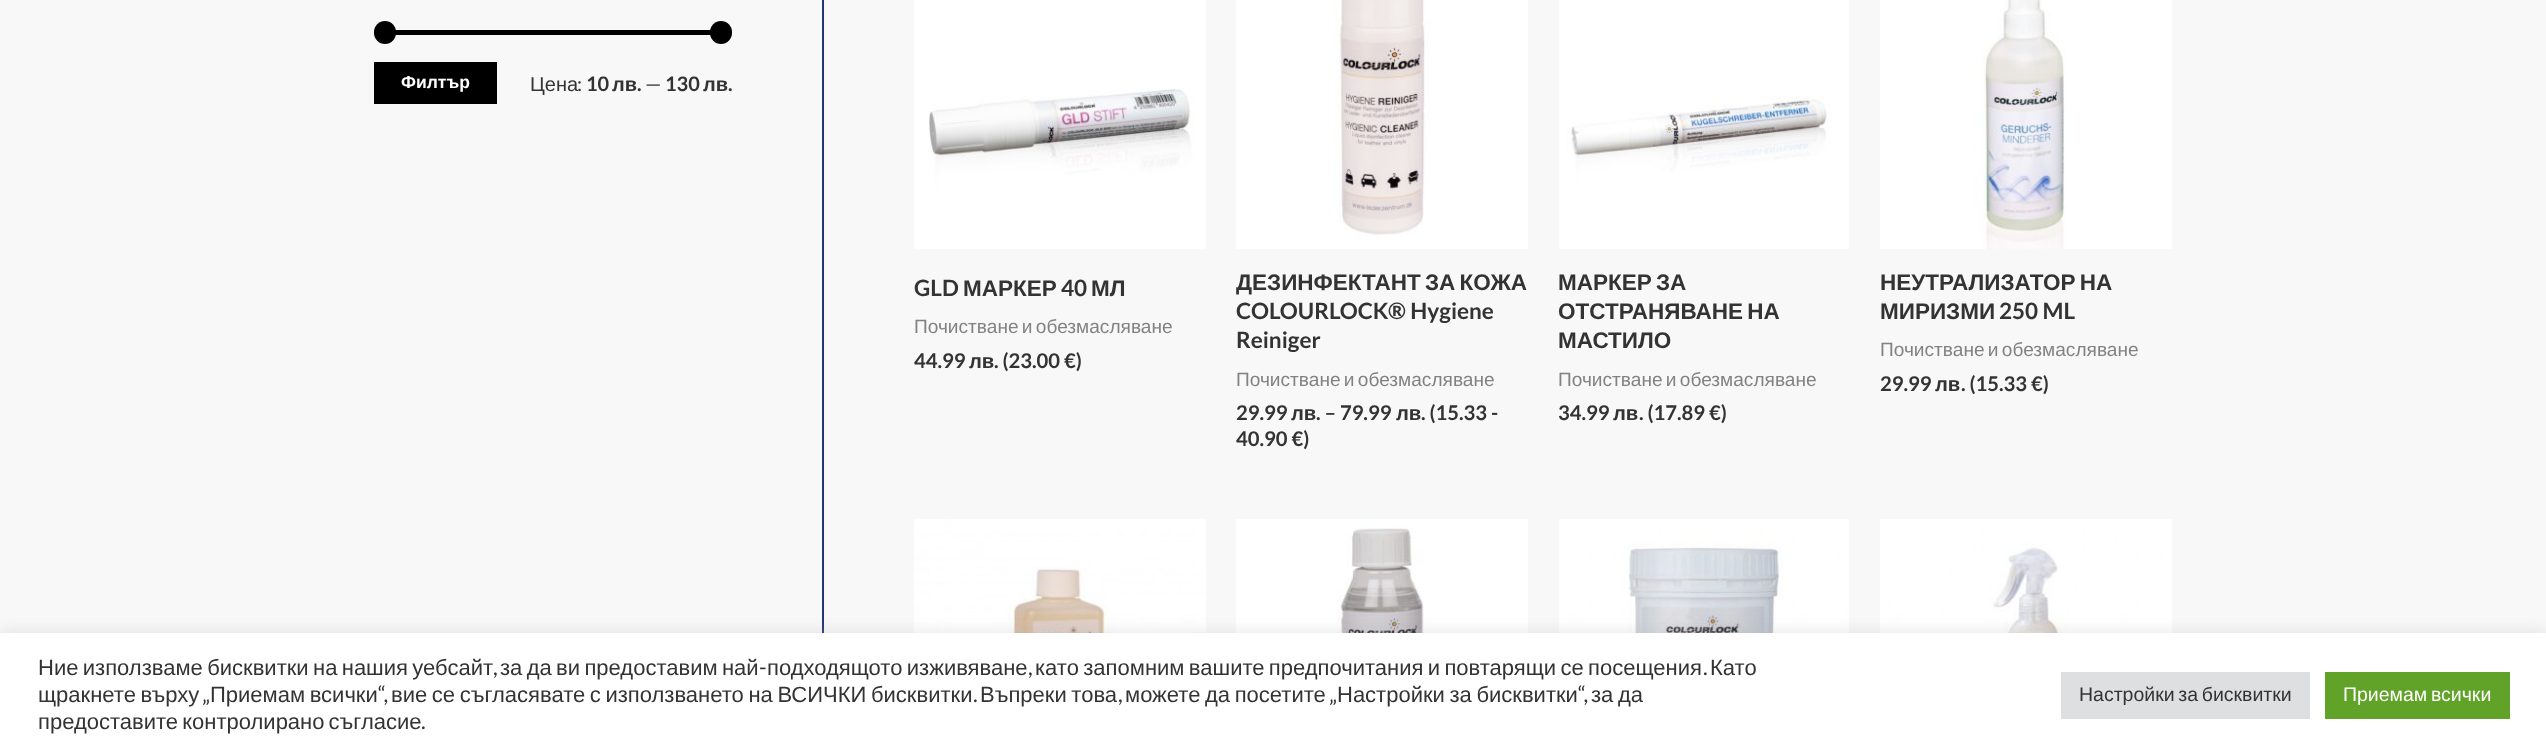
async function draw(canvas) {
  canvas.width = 2546;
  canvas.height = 756;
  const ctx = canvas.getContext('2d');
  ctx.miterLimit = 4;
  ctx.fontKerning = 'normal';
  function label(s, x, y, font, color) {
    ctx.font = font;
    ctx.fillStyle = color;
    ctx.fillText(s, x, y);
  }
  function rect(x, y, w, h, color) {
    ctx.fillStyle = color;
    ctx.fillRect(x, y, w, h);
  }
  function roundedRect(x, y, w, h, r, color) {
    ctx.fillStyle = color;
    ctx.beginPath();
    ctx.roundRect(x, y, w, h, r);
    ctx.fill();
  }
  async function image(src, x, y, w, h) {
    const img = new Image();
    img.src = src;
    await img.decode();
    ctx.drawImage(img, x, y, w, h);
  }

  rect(0, 0, 2546, 756, '#f8f8f8');
  rect(395, 30, 316, 5, '#000');
  roundedRect(374, 21, 22, 23, 11, '#000');
  roundedRect(710, 21, 22, 23, 11, '#000');
  rect(374, 62, 123, 42, '#000');
  label('Филтър', 401, 88, 'bold 17.5px Liberation Sans', '#fff');
  label('Цена', 530, 91, '20px Liberation Sans', '#333');
  label(':', 577, 91, '20px Lato', '#333');
  label('10', 586, 91, 'bold 20px Lato', '#333');
  label('лв', 612, 91, 'bold 20px Liberation Sans', '#333');
  label('—', 645, 91, '20px Lato', '#333');
  label('130', 665, 91, 'bold 20px Lato', '#333');
  label('лв', 703, 91, 'bold 20px Liberation Sans', '#333');
  label('.', 637, 91, 'bold 20px Lato', '#333');
  label('.', 728, 91, 'bold 20px Lato', '#333');
  rect(822, 0, 2, 633, '#243673');
  await image('assets/img1.png', 914, 0, 292, 249);
  label('GLD', 914, 296, 'bold 22.5px Lato', '#333');
  label('МАРКЕР', 963, 296, 'bold 22.5px Liberation Sans', '#333');
  label('40', 1061, 296, 'bold 22.5px Lato', '#333');
  label('МЛ', 1091, 296, 'bold 22.5px Liberation Sans', '#333');
  ctx.wordSpacing = '-2px';
  label('Почистване и обезмасляване', 914, 333, '19.1px Liberation Sans', '#828282');
  ctx.wordSpacing = '0px';
  label('44.99', 914, 368, 'bold 20.25px Lato', '#333');
  label('лв', 969, 368, 'bold 20.25px Liberation Sans', '#333');
  label('. (23.00 €)', 994, 368, 'bold 20.25px Lato', '#333');
  await image('assets/img2.png', 1236, 0, 292, 249);
  ctx.wordSpacing = '-2px';
  label('ДЕЗИНФЕКТАНТ ЗА КОЖА', 1236, 290, 'bold 22.5px Liberation Sans', '#333');
  ctx.wordSpacing = '0px';
  label('COLOURLOCK® Hygiene', 1236, 319, 'bold 22.5px Lato', '#333');
  label('Reiniger', 1236, 348, 'bold 22.5px Lato', '#333');
  ctx.wordSpacing = '-2px';
  label('Почистване и обезмасляване', 1236, 386, '19.1px Liberation Sans', '#828282');
  ctx.wordSpacing = '0px';
  label('29.99', 1236, 420, 'bold 20.25px Lato', '#333');
  label('лв', 1291, 420, 'bold 20.25px Liberation Sans', '#333');
  label('. – 79.99', 1316, 420, 'bold 20.25px Lato', '#333');
  label('лв', 1396, 420, 'bold 20.25px Liberation Sans', '#333');
  label('. (15.33 -', 1421, 420, 'bold 20.25px Lato', '#333');
  label('40.90 €)', 1236, 446, 'bold 20.25px Lato', '#333');
  await image('assets/img3.png', 1559, 0, 290, 249);
  ctx.wordSpacing = '-2px';
  label('МАРКЕР ЗА', 1558, 290, 'bold 22.5px Liberation Sans', '#333');
  label('ОТСТРАНЯВАНЕ НА', 1558, 319, 'bold 22.5px Liberation Sans', '#333');
  ctx.wordSpacing = '0px';
  label('МАСТИЛО', 1558, 348, 'bold 22.5px Liberation Sans', '#333');
  ctx.wordSpacing = '-2px';
  label('Почистване и обезмасляване', 1558, 386, '19.1px Liberation Sans', '#828282');
  ctx.wordSpacing = '0px';
  label('34.99', 1558, 420, 'bold 20.25px Lato', '#333');
  label('лв', 1613, 420, 'bold 20.25px Liberation Sans', '#333');
  label('. (17.89 €)', 1639, 420, 'bold 20.25px Lato', '#333');
  await image('assets/img4.png', 1880, 0, 292, 249);
  ctx.wordSpacing = '-2px';
  label('НЕУТРАЛИЗАТОР НА', 1880, 290, 'bold 22.5px Liberation Sans', '#333');
  ctx.wordSpacing = '0px';
  label('МИРИЗМИ', 1880, 319, 'bold 22.5px Liberation Sans', '#333');
  label('250 ML', 1999, 319, 'bold 22.5px Lato', '#333');
  ctx.wordSpacing = '-2px';
  label('Почистване и обезмасляване', 1880, 356, '19.1px Liberation Sans', '#828282');
  ctx.wordSpacing = '0px';
  label('29.99', 1880, 391, 'bold 20.25px Lato', '#333');
  label('лв', 1935, 391, 'bold 20.25px Liberation Sans', '#333');
  label('. (15.33 €)', 1961, 391, 'bold 20.25px Lato', '#333');
  await image('assets/img5.png', 914, 519, 292, 114);
  await image('assets/img6.png', 1236, 519, 292, 114);
  await image('assets/img7.png', 1559, 519, 290, 114);
  await image('assets/img8.png', 1880, 519, 292, 114);
  ctx.fillStyle = '#acabab4d';
  ctx.filter = 'blur(7.5px)';
  ctx.beginPath();
  ctx.rect(0, 632, 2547, 123);
  ctx.fill();
  ctx.filter = 'none';
  rect(0, 633, 2546, 123, '#fff');
  ctx.wordSpacing = '-1.75px';
  label('Ние използваме бисквитки на нашия уебсайт', 38, 675, '22px Liberation Sans', '#333');
  label('за да ви предоставим най', 500, 675, '22px Liberation Sans', '#333');
  ctx.wordSpacing = '0px';
  label('-', 759, 675, '22px Lato', '#333');
  ctx.wordSpacing = '-1.75px';
  label('подходящото изживяване', 767, 675, '22px Liberation Sans', '#333');
  label('като запомним вашите предпочитания и повтарящи се посещения', 1035, 675, '22px Liberation Sans', '#333');
  ctx.wordSpacing = '0px';
  label('Като', 1710, 675, '22px Liberation Sans', '#333');
  label(',', 493, 675, '22px Lato', '#333');
  label(',', 1028, 675, '22px Lato', '#333');
  label('.', 1703, 675, '22px Lato', '#333');
  ctx.wordSpacing = '-1.5px';
  label('щракнете върху', 38, 702, '22px Liberation Sans', '#333');
  ctx.wordSpacing = '0px';
  label('„', 202, 702, '22px Lato', '#333');
  ctx.wordSpacing = '-1.5px';
  label('Приемам всички', 210, 702, '22px Liberation Sans', '#333');
  ctx.wordSpacing = '0px';
  label('“,', 378, 702, '22px Lato', '#333');
  ctx.wordSpacing = '-1.5px';
  label('вие се съгласявате с използването на ВСИЧКИ бисквитки', 391, 702, '22px Liberation Sans', '#333');
  ctx.wordSpacing = '0px';
  label('.', 973, 702, '22px Lato', '#333');
  ctx.wordSpacing = '-1.5px';
  label('Въпреки това', 980, 702, '22px Liberation Sans', '#333');
  ctx.wordSpacing = '0px';
  label(',', 1118, 702, '22px Lato', '#333');
  ctx.wordSpacing = '-1.5px';
  label('можете да посетите', 1125, 702, '22px Liberation Sans', '#333');
  ctx.wordSpacing = '0px';
  label('„', 1329, 702, '22px Lato', '#333');
  ctx.wordSpacing = '-1.5px';
  label('Настройки за бисквитки', 1337, 702, '22px Liberation Sans', '#333');
  ctx.wordSpacing = '0px';
  label('“,', 1578, 702, '22px Lato', '#333');
  ctx.wordSpacing = '-1.5px';
  label('за да', 1591, 702, '22px Liberation Sans', '#333');
  ctx.wordSpacing = '-2px';
  label('предоставите контролирано съгласие', 38, 729, '22px Liberation Sans', '#333');
  ctx.wordSpacing = '0px';
  label('.', 421, 729, '22px Lato', '#333');
  rect(2061, 672, 249, 47, '#dedfe0');
  ctx.wordSpacing = '-1.75px';
  label('Настройки за бисквитки', 2079, 701, '19.5px Liberation Sans', '#333');
  rect(2325, 672, 185, 47, '#61a229');
  label('Приемам всички', 2343, 701, '19.5px Liberation Sans', '#fff');
}

draw(document.querySelector('canvas'));
